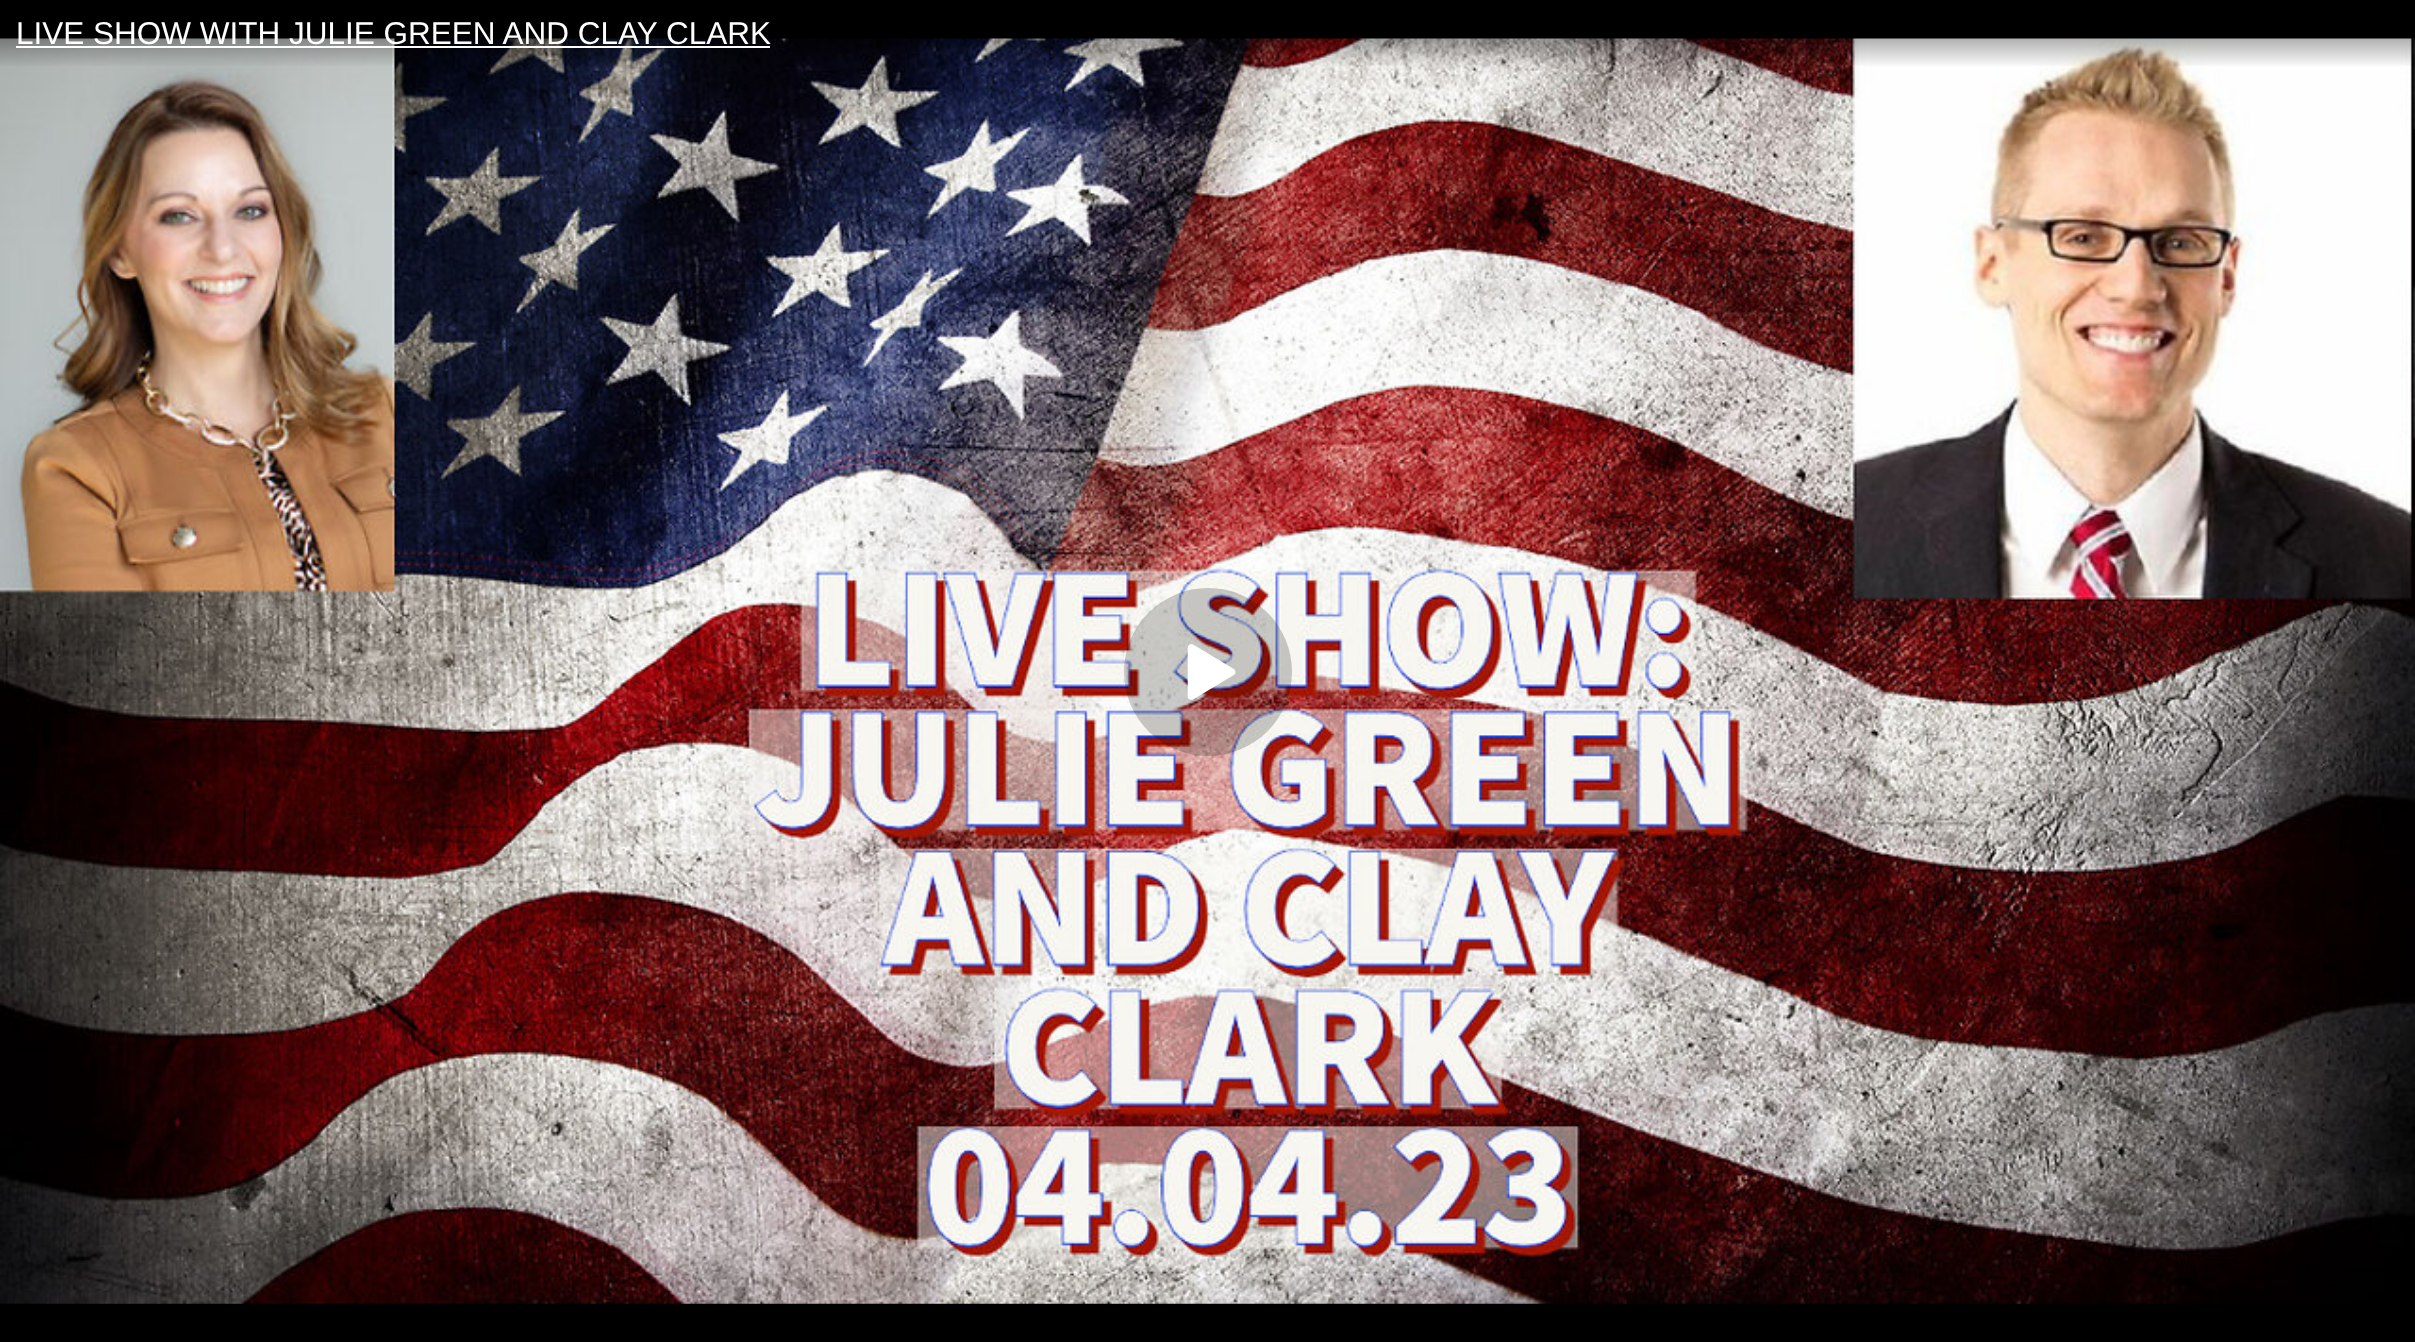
async function draw(canvas) {
  canvas.width = 2415;
  canvas.height = 1342;
  const ctx = canvas.getContext('2d');
  ctx.miterLimit = 4;
  ctx.fontKerning = 'normal';
  function label(s, x, y, font, color) {
    ctx.font = font;
    ctx.fillStyle = color;
    ctx.fillText(s, x, y);
  }
  function rect(x, y, w, h, color) {
    ctx.fillStyle = color;
    ctx.fillRect(x, y, w, h);
  }
  async function image(src, x, y, w, h) {
    const img = new Image();
    img.src = src;
    await img.decode();
    ctx.drawImage(img, x, y, w, h);
  }
  let gradient, path;

  rect(0, 0, 2415, 1342, '#000');
  await image('assets/img1.png', 0, 38, 2415, 1266);
  gradient = ctx.createLinearGradient(1208, 0, 1208, 68);
  gradient.addColorStop(0, '#000000b3');
  gradient.addColorStop(1, '#00000000');
  ctx.fillStyle = gradient;
  ctx.fillRect(0, 38, 2415, 28);
  label('LIVE SHOW WITH JULIE GREEN AND CLAY CLARK', 16, 44, '31.5px Liberation Sans', '#fff');
  rect(16, 46, 754, 2, '#fff');
  ctx.fillStyle = '#00000033';
  ctx.beginPath();
  ctx.arc(1208, 672, 84, 0, 2 * Math.PI);
  ctx.fill();
  ctx.fillStyle = '#fff';
  path = new Path2D('M1232 672L1191 648V696Z');
  ctx.fill(path);
  path = new Path2D('M1231.5 672L1191.5 648V696Z');
  ctx.strokeStyle = '#fff';
  ctx.lineWidth = 7.6;
  ctx.lineJoin = 'round';
  ctx.stroke(path);
}

draw(document.querySelector('canvas'));
